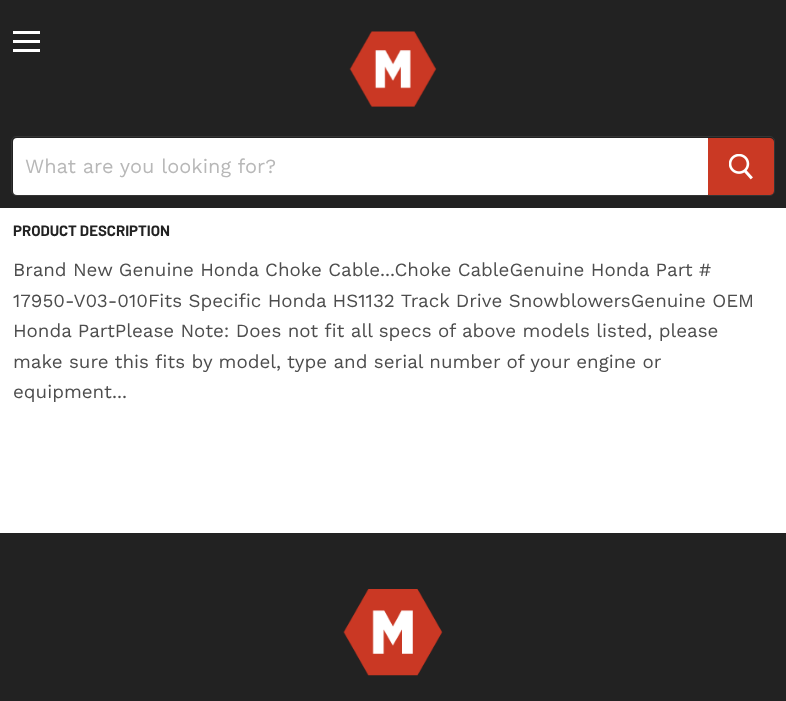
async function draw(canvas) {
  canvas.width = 786;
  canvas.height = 701;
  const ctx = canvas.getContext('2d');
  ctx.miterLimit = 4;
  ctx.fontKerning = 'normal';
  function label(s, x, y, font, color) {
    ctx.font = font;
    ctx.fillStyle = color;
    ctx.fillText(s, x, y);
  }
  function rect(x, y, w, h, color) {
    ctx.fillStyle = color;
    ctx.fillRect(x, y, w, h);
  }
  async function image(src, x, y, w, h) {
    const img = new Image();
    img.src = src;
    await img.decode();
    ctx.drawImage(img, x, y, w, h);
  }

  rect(0, 0, 786, 701, '#fff');
  rect(0, 0, 786, 208, '#222');
  rect(13, 31, 27, 3, '#fff');
  rect(13, 40, 27, 3, '#fff');
  rect(13, 49, 27, 3, '#fff');
  await image('assets/img1.png', 349, 31, 88, 76);
  ctx.beginPath();
  ctx.roundRect(11.5, 136.5, 763, 59, 4.5);
  ctx.strokeStyle = '#7f7f7f33';
  ctx.stroke();
  ctx.beginPath();
  ctx.roundRect(13, 138, 695, 57, [4, 0, 0, 4]);
  ctx.fill();
  label('What are you looking for?', 25, 173, '20px Work Sans', '#b8b8b8');
  ctx.fillStyle = '#ca3924';
  ctx.beginPath();
  ctx.roundRect(708.5, 138.5, 65, 56, [0, 3.5, 3.5, 0]);
  ctx.fill();
  ctx.strokeStyle = '#ca3924';
  ctx.stroke();
  await image('assets/img2.png', 729, 154, 24, 26);
  label('PRODUCT DESCRIPTION', 13, 236, 'bold 15px Barlow', '#222');
  label('Brand New Genuine Honda Choke Cable...Choke CableGenuine Honda Part #', 13, 276, '18.75px Work Sans', '#4d4d4d');
  label('17950-V03-010Fits Specific Honda HS1132 Track Drive SnowblowersGenuine OEM', 13, 307, '18.75px Work Sans', '#4d4d4d');
  label('Honda PartPlease Note: Does not fit all specs of above models listed, please', 13, 337, '18.75px Work Sans', '#4d4d4d');
  label('make sure this fits by model, type and serial number of your engine or', 13, 368, '18.75px Work Sans', '#4d4d4d');
  label('equipment...', 13, 398, '18.75px Work Sans', '#4d4d4d');
  rect(0, 533, 786, 168, '#222');
  await image('assets/img3.png', 343, 589, 100, 87);
}

draw(document.querySelector('canvas'));
